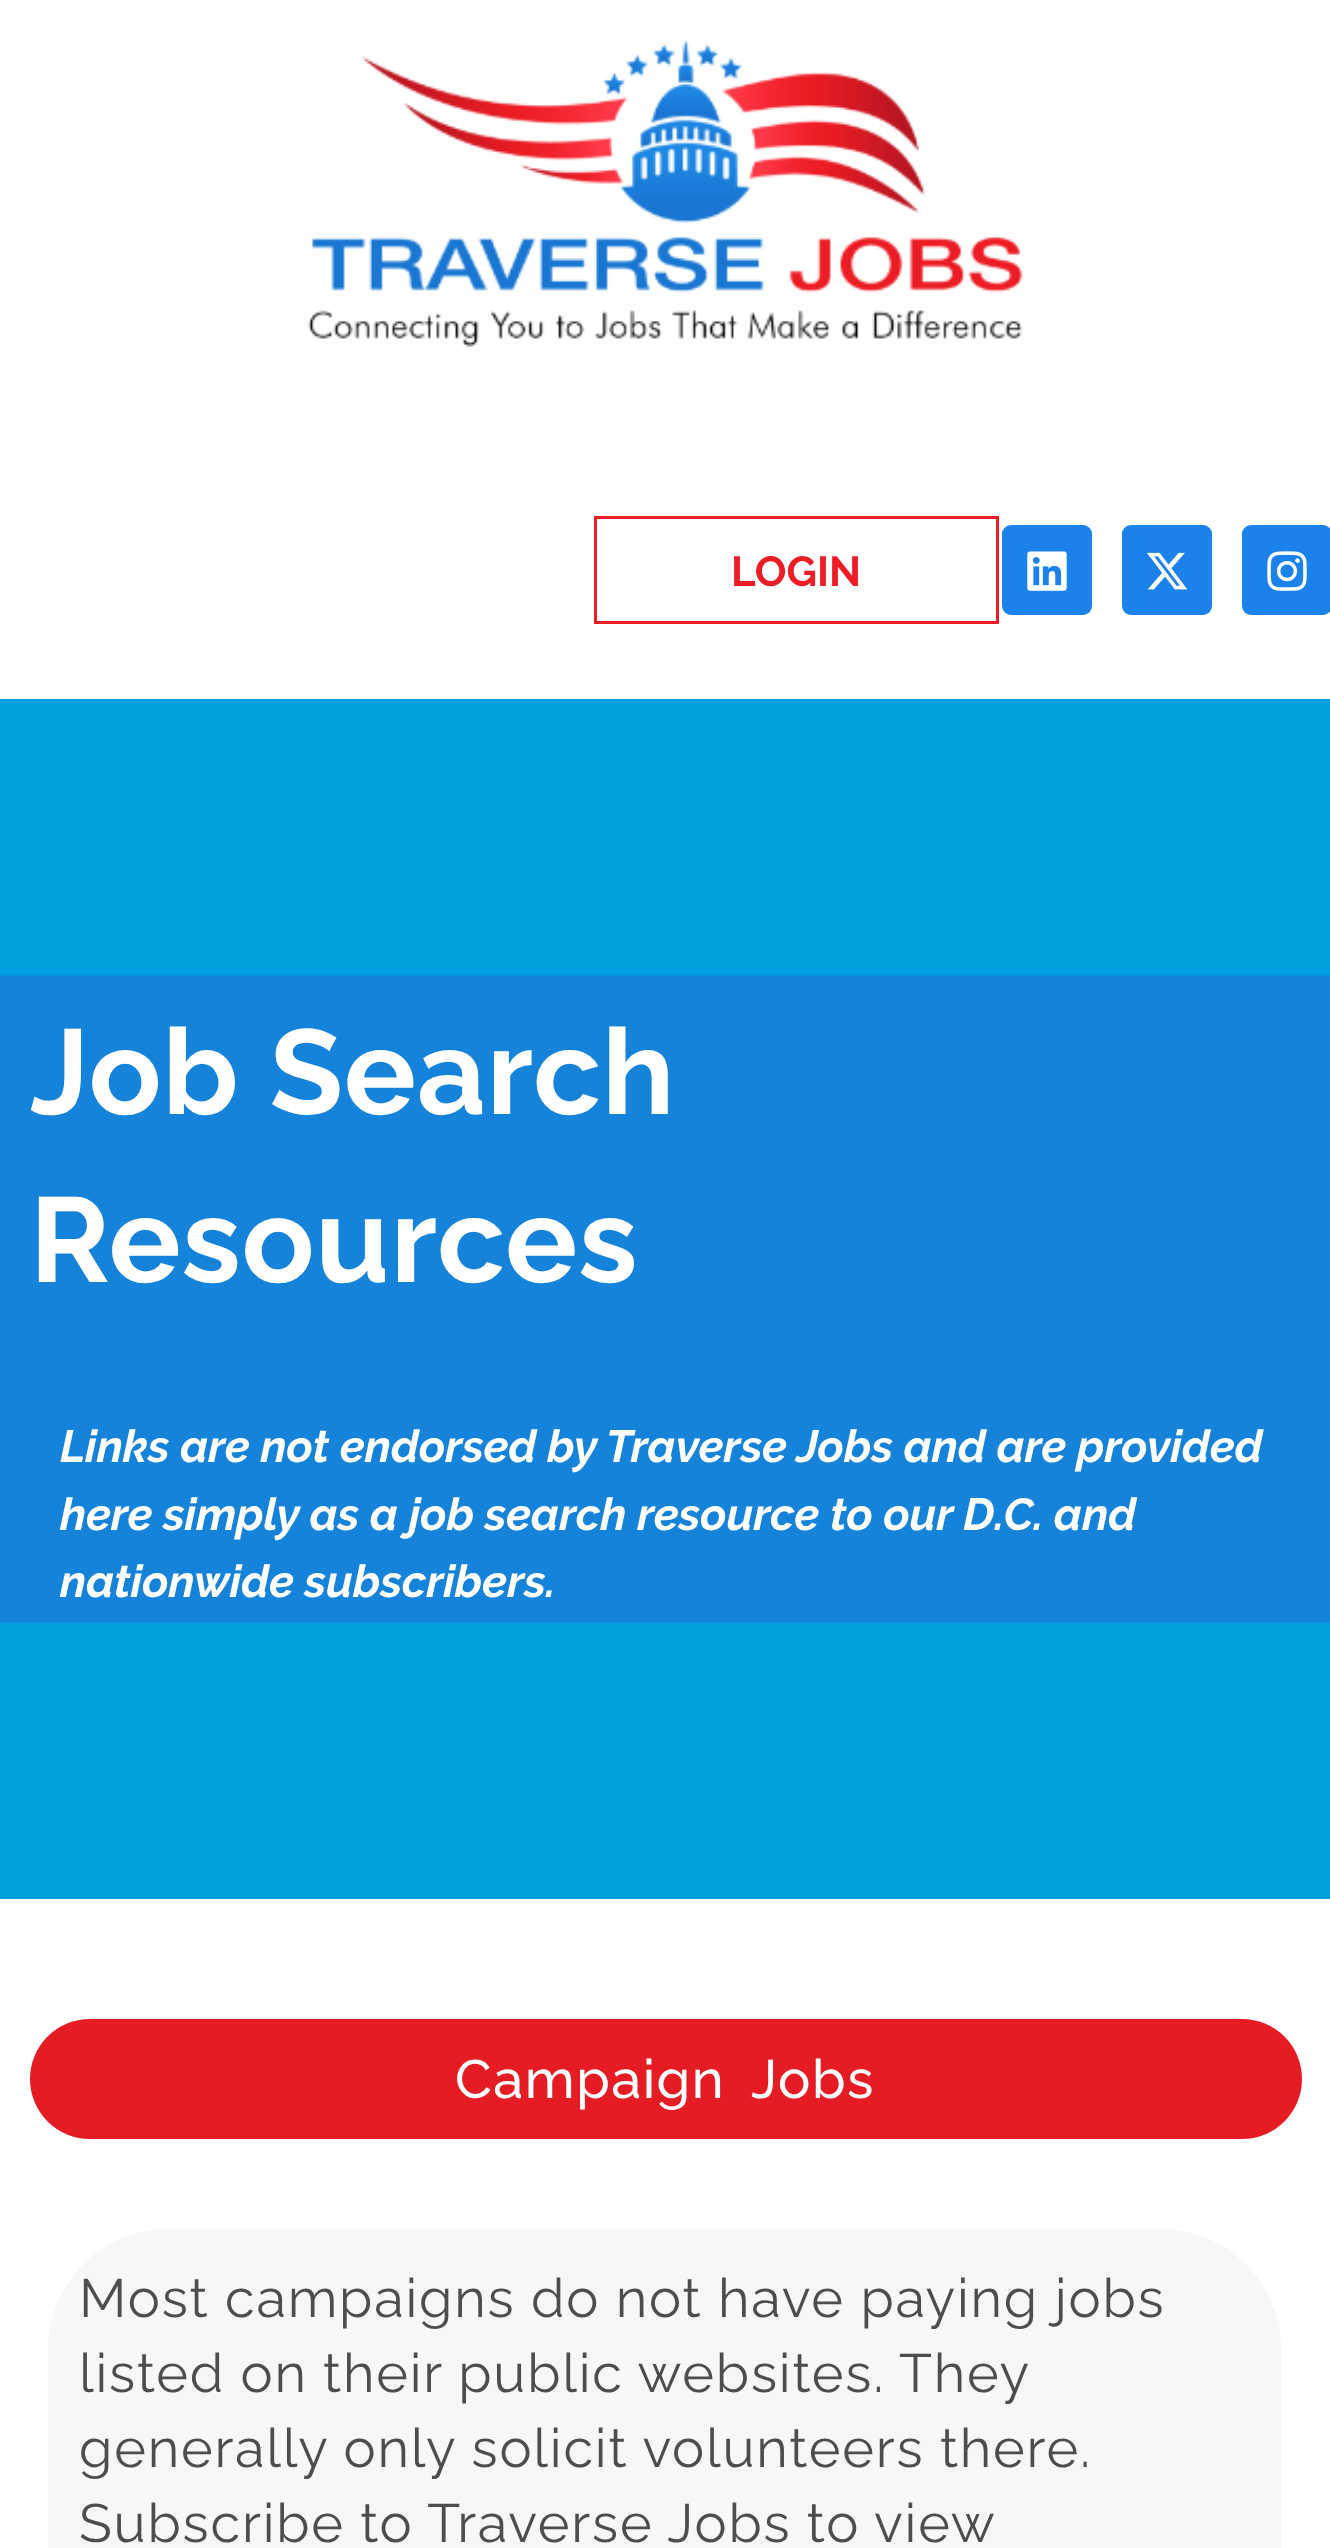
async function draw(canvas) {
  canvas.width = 1330;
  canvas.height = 2548;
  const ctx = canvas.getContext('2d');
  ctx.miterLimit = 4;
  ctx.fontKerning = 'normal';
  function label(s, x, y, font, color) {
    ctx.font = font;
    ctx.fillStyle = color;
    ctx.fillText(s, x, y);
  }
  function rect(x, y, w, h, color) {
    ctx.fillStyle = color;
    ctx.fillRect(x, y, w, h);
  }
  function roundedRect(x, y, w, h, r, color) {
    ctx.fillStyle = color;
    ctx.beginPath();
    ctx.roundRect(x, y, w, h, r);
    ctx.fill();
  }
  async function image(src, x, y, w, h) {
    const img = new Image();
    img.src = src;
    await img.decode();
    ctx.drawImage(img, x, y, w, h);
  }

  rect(0, 0, 1330, 2548, '#fff');
  await image('assets/img1.png', 307, 40, 716, 308);
  ctx.strokeStyle = '#ed1d25';
  ctx.lineWidth = 3;
  ctx.strokeRect(595.5, 517.5, 402, 105);
  label('LOGIN', 731, 586, 'bold 42px Raleway', '#ed1d25');
  roundedRect(1002, 525, 90, 90, 9, '#1c82eb');
  await image('assets/img2.png', 1027, 551, 40, 40);
  roundedRect(1122, 525, 90, 90, 9, '#1c82eb');
  await image('assets/img3.png', 1147, 552, 41, 38);
  roundedRect(1242, 525, 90, 90, 9, '#1c82eb');
  await image('assets/img4.png', 1267, 551, 40, 40);
  rect(0, 699, 1330, 1200, '#00a1df');
  await image('assets/img5.png', 0, 973, 1330, 652);
  ctx.letterSpacing = '1px';
  label('Job Search', 30, 1114, 'bold 120px Raleway', '#fff');
  label('Resources', 30, 1282, 'bold 120px Raleway', '#fff');
  ctx.letterSpacing = '0px';
  label('Links are not endorsed by Traverse Jobs and are provided', 60, 1462, 'italic bold 45px Raleway', '#fff');
  label('here simply as a job search resource to our D.C. and', 60, 1530, 'italic bold 45px Raleway', '#fff');
  label('nationwide subscribers.', 60, 1597, 'italic bold 45px Raleway', '#fff');
  roundedRect(30, 2019, 1272, 120, 60, '#e51c24');
  ctx.letterSpacing = '1.5px';
  ctx.wordSpacing = '12px';
  label('Campaign Jobs', 455, 2098, '500 54px Raleway', '#fff');
  roundedRect(48, 2229, 1233, 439, 120, '#f7f7f7');
  ctx.letterSpacing = '1.8px';
  ctx.wordSpacing = '0px';
  label('Most campaigns do not have paying jobs', 79, 2317, '54px Raleway', '#4d4d4d');
  ctx.wordSpacing = '-0.25px';
  label('listed on their public websites. They', 79, 2392, '54px Raleway', '#4d4d4d');
  ctx.wordSpacing = '0px';
  label('generally only solicit volunteers there.', 79, 2467, '54px Raleway', '#4d4d4d');
  ctx.wordSpacing = '-0.25px';
  label('Subscribe to Traverse Jobs to view', 79, 2542, '54px Raleway', '#4d4d4d');
}

draw(document.querySelector('canvas'));
